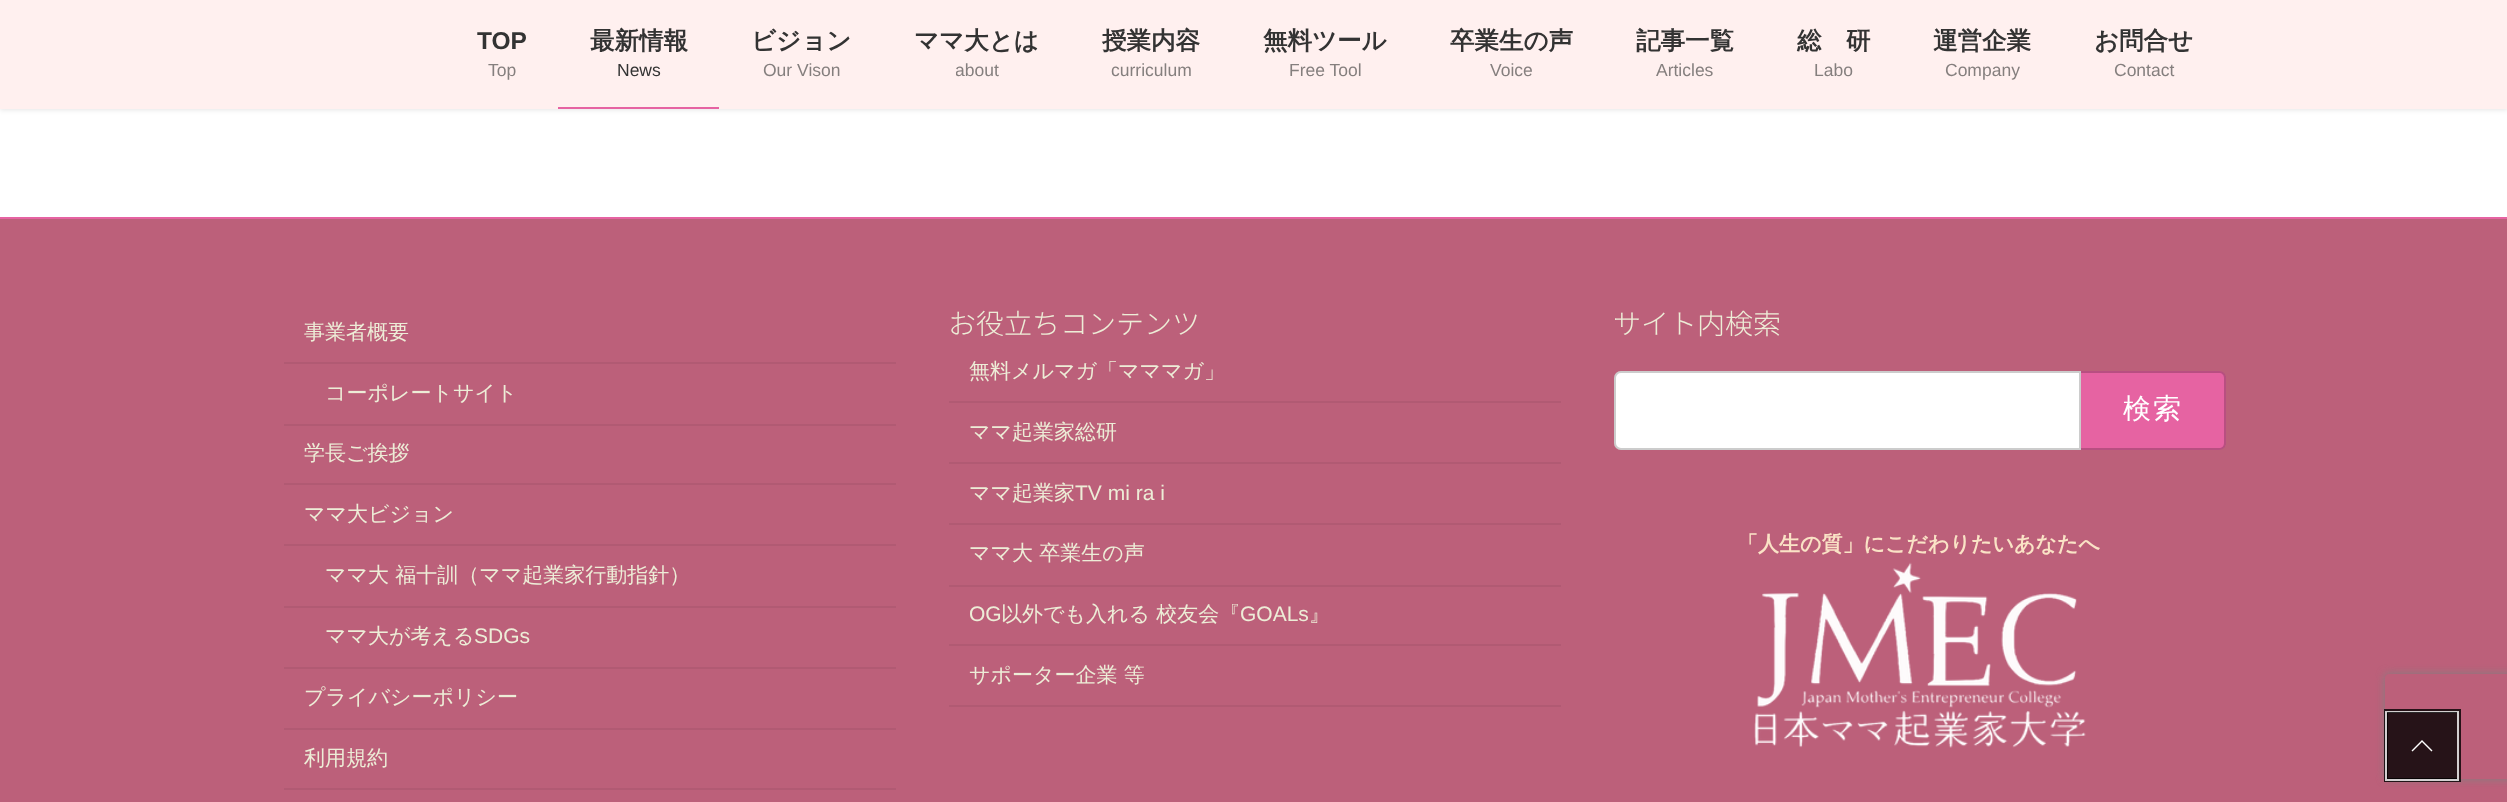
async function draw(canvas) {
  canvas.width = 2507;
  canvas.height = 802;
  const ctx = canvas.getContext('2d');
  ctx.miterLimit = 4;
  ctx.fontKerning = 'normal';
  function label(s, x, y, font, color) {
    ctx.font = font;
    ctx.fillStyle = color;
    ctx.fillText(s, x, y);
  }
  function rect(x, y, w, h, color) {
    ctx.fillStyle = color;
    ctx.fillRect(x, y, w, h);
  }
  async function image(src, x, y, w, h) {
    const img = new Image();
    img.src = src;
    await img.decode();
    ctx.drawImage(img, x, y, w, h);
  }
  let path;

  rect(0, 0, 2507, 802, '#fff');
  ctx.fillStyle = '#0000001a';
  ctx.filter = 'blur(2.5px)';
  ctx.beginPath();
  ctx.rect(0, 2, 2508, 108);
  ctx.fill();
  ctx.filter = 'none';
  rect(0, 0, 2507, 109, '#fff0ef');
  label('TOP', 477, 49, 'bold 24.5px Liberation Sans', '#333');
  label('Top', 488, 76, '17.5px Liberation Sans', '#857f7e');
  label('最新情報', 590, 49, 'bold 24.5px WenQuanYi Zen Hei', '#333');
  label('News', 617, 76, '17.5px Liberation Sans', '#333');
  rect(558, 107, 161, 2, '#e663a2');
  label('ビジョン', 751, 49, 'bold 24.5px WenQuanYi Zen Hei', '#333');
  label('Our Vison', 763, 76, '17.5px Liberation Sans', '#857f7e');
  label('ママ大とは', 914, 49, 'bold 24.5px WenQuanYi Zen Hei', '#333');
  ctx.save();
  ctx.beginPath();
  ctx.rect(956, 60, 43, 24);
  ctx.clip();
  label('about', 955, 76, '17.5px Liberation Sans', '#857f7e');
  ctx.restore();
  label('授業内容', 1102, 49, 'bold 24.5px WenQuanYi Zen Hei', '#333');
  label('curriculum', 1111, 76, '17.5px Liberation Sans', '#857f7e');
  label('無料ツール', 1263, 49, 'bold 24.5px WenQuanYi Zen Hei', '#333');
  label('Free Tool', 1289, 76, '17.5px Liberation Sans', '#857f7e');
  label('卒業生の声', 1450, 49, 'bold 24.5px WenQuanYi Zen Hei', '#333');
  label('Voice', 1490, 76, '17.5px Liberation Sans', '#857f7e');
  label('記事一覧', 1636, 49, 'bold 24.5px WenQuanYi Zen Hei', '#333');
  label('Articles', 1656, 76, '17.5px Liberation Sans', '#857f7e');
  label('総　研', 1797, 49, 'bold 24.5px WenQuanYi Zen Hei', '#333');
  label('Labo', 1814, 76, '17.5px Liberation Sans', '#857f7e');
  label('運営企業', 1933, 49, 'bold 24.5px WenQuanYi Zen Hei', '#333');
  label('Company', 1945, 76, '17.5px Liberation Sans', '#857f7e');
  label('お問合せ', 2094, 49, 'bold 24.5px WenQuanYi Zen Hei', '#333');
  label('Contact', 2114, 76, '17.5px Liberation Sans', '#857f7e');
  rect(0, 219, 2507, 583, '#bc607a');
  rect(0, 217, 2507, 2, '#e663a2');
  rect(284, 362, 612, 2, '#b15a73');
  label('事業者概要', 304, 339, '500 21px WenQuanYi Zen Hei', '#ededd7');
  rect(284, 424, 612, 2, '#b15a73');
  label('コーポレートサイト', 325, 400, '500 21px WenQuanYi Zen Hei', '#ededd7');
  rect(284, 483, 612, 2, '#b15a73');
  label('学長ご挨拶', 304, 460, '500 21px WenQuanYi Zen Hei', '#ededd7');
  rect(284, 544, 612, 2, '#b15a73');
  label('ママ大ビジョン', 304, 521, '500 21px WenQuanYi Zen Hei', '#ededd7');
  rect(284, 606, 612, 2, '#b15a73');
  label('ママ大 福十訓（ママ起業家行動指針）', 325, 582, '500 21px WenQuanYi Zen Hei', '#ededd7');
  rect(284, 667, 612, 2, '#b15a73');
  label('ママ大が考える', 325, 643, '500 21px WenQuanYi Zen Hei', '#ededd7');
  label('SDGs', 474, 643, '21px Liberation Sans', '#ededd7');
  rect(284, 728, 612, 2, '#b15a73');
  label('プライバシーポリシー', 304, 704, '500 21px WenQuanYi Zen Hei', '#ededd7');
  rect(284, 788, 612, 2, '#b15a73');
  label('利用規約', 304, 765, '500 21px WenQuanYi Zen Hei', '#ededd7');
  label('お役立ちコンテンツ', 948, 334, '100 28px Noto Sans JP', '#ededd7');
  rect(949, 401, 612, 2, '#b15a73');
  label('無料メルマガ「マママガ」', 969, 378, '500 21px WenQuanYi Zen Hei', '#ededd7');
  rect(949, 462, 612, 2, '#b15a73');
  label('ママ起業家総研', 969, 439, '500 21px WenQuanYi Zen Hei', '#ededd7');
  rect(949, 523, 612, 2, '#b15a73');
  label('ママ起業家', 969, 500, '500 21px WenQuanYi Zen Hei', '#ededd7');
  label('TV mi ra i', 1075, 500, '21px Liberation Sans', '#ededd7');
  rect(949, 585, 612, 2, '#b15a73');
  label('ママ大 卒業生の声', 969, 560, '500 21px WenQuanYi Zen Hei', '#ededd7');
  rect(949, 644, 612, 2, '#b15a73');
  label('OG', 969, 621, '21px Liberation Sans', '#ededd7');
  label('以外でも入れる 校友会『', 1001, 621, '500 21px WenQuanYi Zen Hei', '#ededd7');
  label('GOALs', 1240, 621, '21px Liberation Sans', '#ededd7');
  label('』', 1309, 621, '500 21px WenQuanYi Zen Hei', '#ededd7');
  rect(949, 705, 612, 2, '#b15a73');
  label('サポーター企業 等', 969, 682, '500 21px WenQuanYi Zen Hei', '#ededd7');
  label('サイト内検索', 1613, 334, '100 28px Noto Sans JP', '#ededd7');
  ctx.fillStyle = '#fff';
  ctx.beginPath();
  ctx.roundRect(1614, 371, 467, 79, [7, 0, 0, 7]);
  ctx.fill();
  ctx.beginPath();
  ctx.roundRect(1615, 372, 465, 77, [6, 0, 0, 6]);
  ctx.strokeStyle = '#00000033';
  ctx.lineWidth = 2;
  ctx.stroke();
  ctx.fillStyle = '#e663a2';
  ctx.beginPath();
  ctx.roundRect(2081, 371, 145, 79, [0, 7, 7, 0]);
  ctx.fill();
  ctx.fillStyle = '#00000033';
  path = new Path2D('M2081 371H2219C2223 371 2226 374 2226 378V443C2226 447 2223 450 2219 450H2081ZM2081 373H2219C2222 373 2224 375 2224 378V443C2224 446 2222 448 2219 448H2081Z');
  ctx.fill(path, 'evenodd');
  ctx.letterSpacing = '2px';
  label('検索', 2123, 418, '500 28px WenQuanYi Zen Hei', '#fff');
  ctx.letterSpacing = '0px';
  label('「人生の質」にこだわりたいあなたへ', 1737, 551, 'bold 21px WenQuanYi Zen Hei', '#fae3c6');
  await image('assets/img1.png', 1754, 562, 332, 186);
  ctx.save();
  path = new Path2D('M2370 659H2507V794H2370ZM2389 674H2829C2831 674 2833 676 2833 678V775C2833 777 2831 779 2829 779H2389C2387 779 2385 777 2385 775V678C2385 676 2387 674 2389 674Z');
  ctx.clip(path, 'evenodd');
  ctx.fillStyle = '#808080';
  ctx.filter = 'blur(4.5px)';
  ctx.beginPath();
  ctx.roundRect(2385, 674, 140, 105, 4);
  ctx.fill();
  ctx.filter = 'none';
  ctx.restore();
  ctx.strokeStyle = '#000000cc';
  ctx.lineWidth = 4;
  ctx.strokeRect(2386, 711, 73, 69);
  ctx.strokeStyle = '#ffffffcc';
  ctx.lineWidth = 2;
  ctx.strokeRect(2386, 712, 72, 68);
  rect(2387, 712, 70, 67, '#000000cc');
  ctx.fillStyle = '#fff';
  path = new Path2D('M2432.5 750.5L2431.5 751.5L2422 742L2412.5 751.5L2411.5 750.5L2422 740Z');
  ctx.fill(path);
}

draw(document.querySelector('canvas'));
